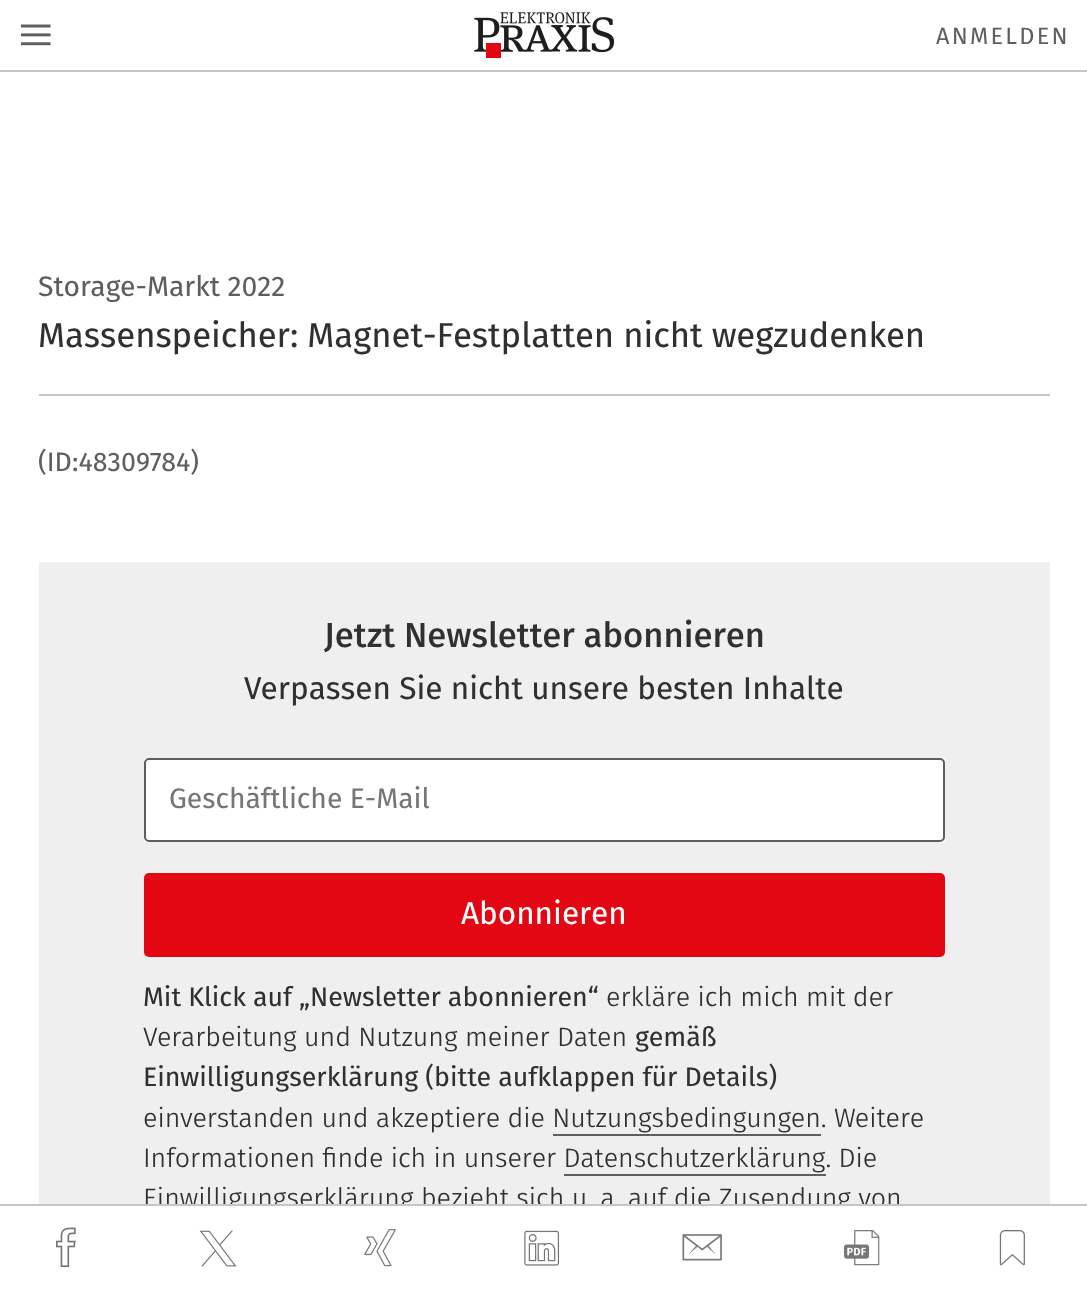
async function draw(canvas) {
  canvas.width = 1087;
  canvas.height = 1291;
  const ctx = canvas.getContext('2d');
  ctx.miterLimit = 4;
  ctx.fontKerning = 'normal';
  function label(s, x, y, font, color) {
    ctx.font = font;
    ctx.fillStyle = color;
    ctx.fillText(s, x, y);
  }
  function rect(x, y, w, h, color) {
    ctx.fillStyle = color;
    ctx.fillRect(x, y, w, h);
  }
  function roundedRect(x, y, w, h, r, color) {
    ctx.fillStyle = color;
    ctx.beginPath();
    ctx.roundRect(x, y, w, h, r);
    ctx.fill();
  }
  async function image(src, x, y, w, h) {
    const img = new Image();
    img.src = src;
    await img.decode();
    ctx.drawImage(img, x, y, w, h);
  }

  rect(0, 0, 1087, 1291, '#fff');
  rect(0, 70, 1087, 2, '#c6c6c6');
  await image('assets/img1.png', 21, 24, 30, 22);
  await image('assets/img2.png', 474, 12, 140, 46);
  ctx.letterSpacing = '2.25px';
  label('ANMELDEN', 936, 44, '23.5px "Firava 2"', '#5e5e5e');
  rect(39, 394, 1011, 2, '#c6c6c6');
  ctx.letterSpacing = '0px';
  label('Storage-Markt 2022', 38, 296, '28.25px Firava', '#5e5e5e');
  label('Massenspeicher: Magnet-Festplatten nicht wegzudenken', 38, 347, '34.65px Firava', '#303030');
  label('(ID:48309784)', 38, 471, '26.75px Firava', '#5e5e5e');
  rect(39, 562, 1011, 642, '#efefef');
  label('Jetzt Newsletter abonnieren', 324, 647, '500 34.65px Firava', '#303030');
  label('Verpassen Sie nicht unsere besten Inhalte', 244, 699, '31.5px Firava', '#303030');
  rect(144, 758, 801, 84, '#fff');
  ctx.beginPath();
  ctx.roundRect(145, 759, 799, 82, 4);
  ctx.strokeStyle = '#5e5e5e';
  ctx.lineWidth = 2;
  ctx.stroke();
  label('Geschäftliche E-Mail', 169, 808, '28.25px Firava', '#767676');
  roundedRect(144, 873, 801, 84, 5, '#e30613');
  label('Abonnieren', 461, 924, '31.5px Firava', '#fff');
  label('Mit Klick auf „Newsletter abonnieren“', 143, 1006, '26.75px Firava', '#303030');
  label('erkläre ich mich mit der', 606, 1006, '300 26.75px Firava', '#303030');
  label('Verarbeitung und Nutzung meiner Daten', 143, 1046, '300 26.75px Firava', '#303030');
  label('gemäß', 635, 1046, '26.75px Firava', '#303030');
  label('Einwilligungserklärung (bitte aufklappen für Details)', 143, 1086, '26.75px Firava', '#303030');
  label('einverstanden und akzeptiere die Nutzungsbedingungen. Weitere', 143, 1127, '300 26.75px Firava', '#303030');
  rect(553, 1134, 268, 2, '#5e5e5e');
  label('Informationen finde ich in unserer Datenschutzerklärung. Die', 143, 1167, '300 26.75px Firava', '#303030');
  rect(564, 1174, 262, 2, '#5e5e5e');
  label('Einwilligungserklärung bezieht sich u. a. auf die Zusendung von', 143, 1207, '300 26.75px Firava', '#303030');
  rect(145, 1206, 755, 7, '#fff');
  rect(0, 1204, 1087, 2, '#c6c6c6');
  await image('assets/img3.png', 56, 1227, 20, 40);
  await image('assets/img4.png', 199, 1230, 38, 37);
  await image('assets/img5.png', 364, 1229, 32, 38);
  await image('assets/img6.png', 524, 1230, 36, 36);
  await image('assets/img7.png', 682, 1234, 40, 27);
  await image('assets/img8.png', 844, 1230, 36, 36);
  await image('assets/img9.png', 999, 1230, 26, 36);
}

draw(document.querySelector('canvas'));
